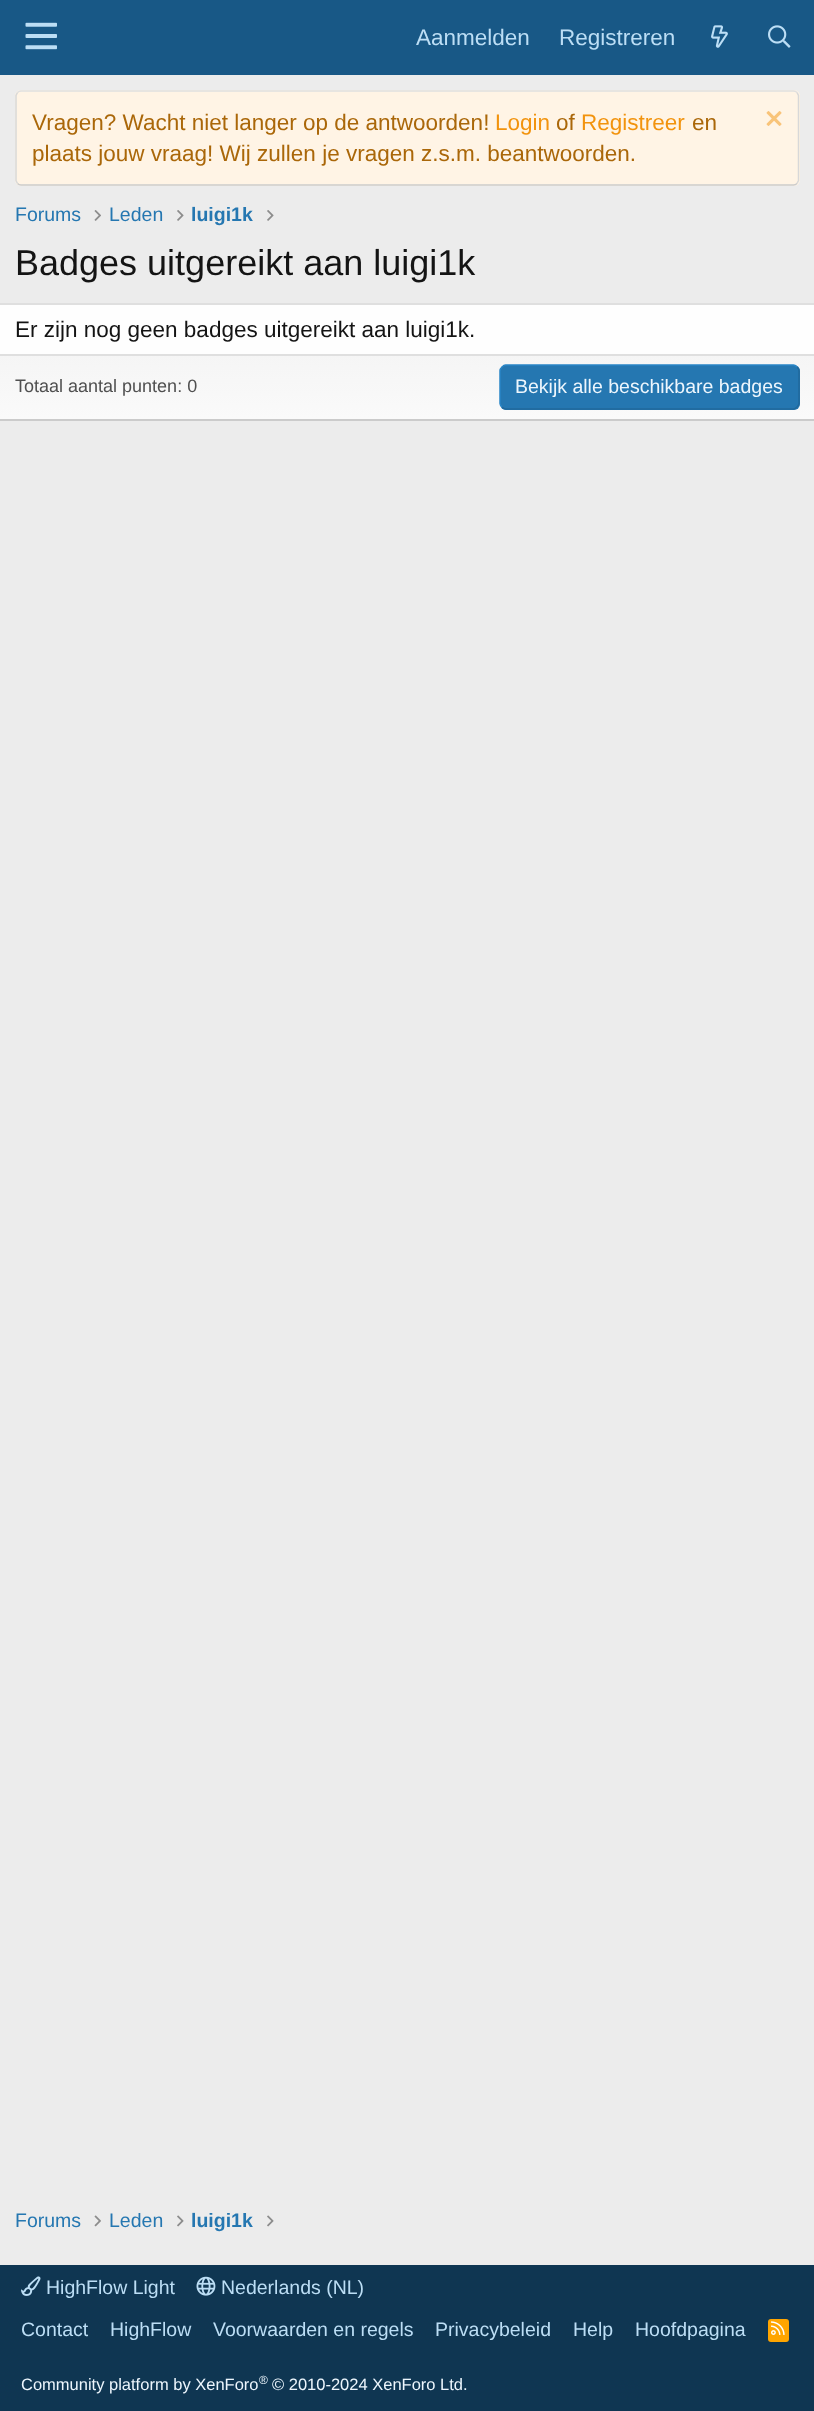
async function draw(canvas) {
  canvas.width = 814;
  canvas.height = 2411;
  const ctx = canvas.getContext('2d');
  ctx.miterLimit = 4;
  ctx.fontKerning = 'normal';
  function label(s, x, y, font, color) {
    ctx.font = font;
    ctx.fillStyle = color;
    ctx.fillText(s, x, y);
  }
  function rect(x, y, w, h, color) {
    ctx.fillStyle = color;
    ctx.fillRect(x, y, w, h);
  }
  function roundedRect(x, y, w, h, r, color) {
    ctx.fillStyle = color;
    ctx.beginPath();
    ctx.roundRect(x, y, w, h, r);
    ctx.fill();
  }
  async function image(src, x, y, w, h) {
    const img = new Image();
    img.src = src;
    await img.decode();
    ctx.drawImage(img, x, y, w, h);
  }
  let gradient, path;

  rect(0, 0, 814, 2411, '#ececec');
  rect(0, 0, 814, 75, '#185886');
  await image('assets/img1.png', 25, 22, 32, 28);
  label('Aanmelden', 416, 45, '22.5px Liberation Sans', '#bcdef5');
  label('Registreren', 559, 45, '22.5px Liberation Sans', '#bcdef5');
  await image('assets/img2.png', 711, 25, 17, 23);
  await image('assets/img3.png', 768, 25, 23, 23);
  roundedRect(15, 90, 785, 96, 6, '#fff4e5');
  path = new Path2D('M17.5 92.5C18.5 91.5 19.5 91 21 91H793.5C795 91 796 91.5 797 92.5');
  ctx.strokeStyle = '#dfdfdf';
  ctx.lineWidth = 1.5;
  ctx.stroke(path);
  path = new Path2D('M797 92.5L798.5 95.5V180.5L797 183.5');
  ctx.strokeStyle = '#d8d8d8';
  ctx.stroke(path);
  path = new Path2D('M797 183.5C796 184.5 795 185 793.5 185H21C19.5 185 18.5 184.5 17.5 183.5');
  ctx.strokeStyle = '#cbcbcb';
  ctx.stroke(path);
  path = new Path2D('M17.5 183.5L16 180.5V95.5L17.5 92.5');
  ctx.strokeStyle = '#d8d8d8';
  ctx.stroke(path);
  label('Vragen? Wacht niet langer op de antwoorden!', 32, 130, '22.5px Liberation Sans', '#aa6709');
  label('Login', 495, 130, '22.5px Liberation Sans', '#f2930d');
  label('of', 556, 130, '22.5px Liberation Sans', '#aa6709');
  label('Registreer', 581, 130, '22.5px Liberation Sans', '#f2930d');
  label('en', 692, 130, '22.5px Liberation Sans', '#aa6709');
  await image('assets/img4.png', 766, 111, 16, 15);
  label('plaats jouw vraag! Wij zullen je vragen z.s.m. beantwoorden.', 32, 161, '22.5px Liberation Sans', '#aa6709');
  label('Forums', 15, 221, '19.5px Liberation Sans', '#2577b1');
  await image('assets/img5.png', 94, 210, 7, 11);
  label('Leden', 109, 221, '19.5px Liberation Sans', '#2577b1');
  await image('assets/img6.png', 177, 210, 7, 11);
  label('luigi1k', 191, 221, 'bold 19.5px Liberation Sans', '#2577b1');
  await image('assets/img6.png', 267, 210, 7, 11);
  label('Badges uitgereikt aan luigi1k', 15, 275, '36px Liberation Sans', '#141414');
  rect(0, 305, 814, 49, '#fefefe');
  rect(0, 303, 814, 2, '#dfdfdf');
  rect(0, 419, 814, 2, '#cbcbcb');
  label('Er zijn nog geen badges uitgereikt aan luigi1k.', 15, 337, '22.5px Liberation Sans', '#141414');
  gradient = ctx.createLinearGradient(407, 355, 407, 419);
  gradient.addColorStop(0, '#f5f5f5');
  gradient.addColorStop(1, '#fafafa');
  ctx.fillStyle = gradient;
  ctx.fillRect(0, 356, 814, 63);
  rect(0, 354, 814, 2, '#dfdfdf');
  label('Totaal aantal punten: 0', 15, 392, '18px Liberation Sans', '#505050');
  roundedRect(500, 365, 300, 45, 6, '#2577b1');
  path = new Path2D('M797 367C798 368 799 369 799 370.5V403.5C799 405 798 406 797 407C796 408 795 409 793.5 409H505.5C504 409 503 408 502 407');
  ctx.strokeStyle = '#21699c';
  ctx.stroke(path);
  path = new Path2D('M502 407C501 406 500 405 500 403.5V370.5C500 369 501 368 502 367C503 366 504 365 505.5 365H793.5C795 365 796 366 797 367');
  ctx.strokeStyle = '#2985c6';
  ctx.stroke(path);
  label('Bekijk alle beschikbare badges', 515, 393, '19.5px Liberation Sans', '#edf6fd');
  label('Forums', 15, 2227, '19.5px Liberation Sans', '#2577b1');
  await image('assets/img7.png', 94, 2215, 7, 12);
  label('Leden', 109, 2227, '19.5px Liberation Sans', '#2577b1');
  await image('assets/img8.png', 177, 2215, 7, 12);
  label('luigi1k', 191, 2227, 'bold 19.5px Liberation Sans', '#2577b1');
  await image('assets/img8.png', 267, 2215, 7, 12);
  rect(0, 2265, 814, 146, '#0f3652');
  await image('assets/img9.png', 21, 2276, 20, 20);
  label('HighFlow Light', 46, 2294, '19.5px Liberation Sans', '#bcdef5');
  await image('assets/img10.png', 196, 2276, 20, 20);
  label('Nederlands (NL)', 221, 2294, '19.5px Liberation Sans', '#bcdef5');
  label('Contact', 21, 2336, '19.5px Liberation Sans', '#bcdef5');
  label('HighFlow', 110, 2336, '19.5px Liberation Sans', '#bcdef5');
  label('Voorwaarden en regels', 213, 2336, '19.5px Liberation Sans', '#bcdef5');
  label('Privacybeleid', 435, 2336, '19.5px Liberation Sans', '#bcdef5');
  label('Help', 573, 2336, '19.5px Liberation Sans', '#bcdef5');
  label('Hoofdpagina', 635, 2336, '19.5px Liberation Sans', '#bcdef5');
  roundedRect(768, 2319, 21, 23, 3, '#ffa500');
  await image('assets/img11.png', 771, 2321, 14, 14);
  label('Community platform by XenForo', 21, 2390, '16.5px Liberation Sans', '#edf6fd');
  label('®', 259, 2384, '12px Liberation Sans', '#edf6fd');
  label('© 2010-2024 XenForo Ltd.', 272, 2390, '16.5px Liberation Sans', '#edf6fd');
}

draw(document.querySelector('canvas'));
